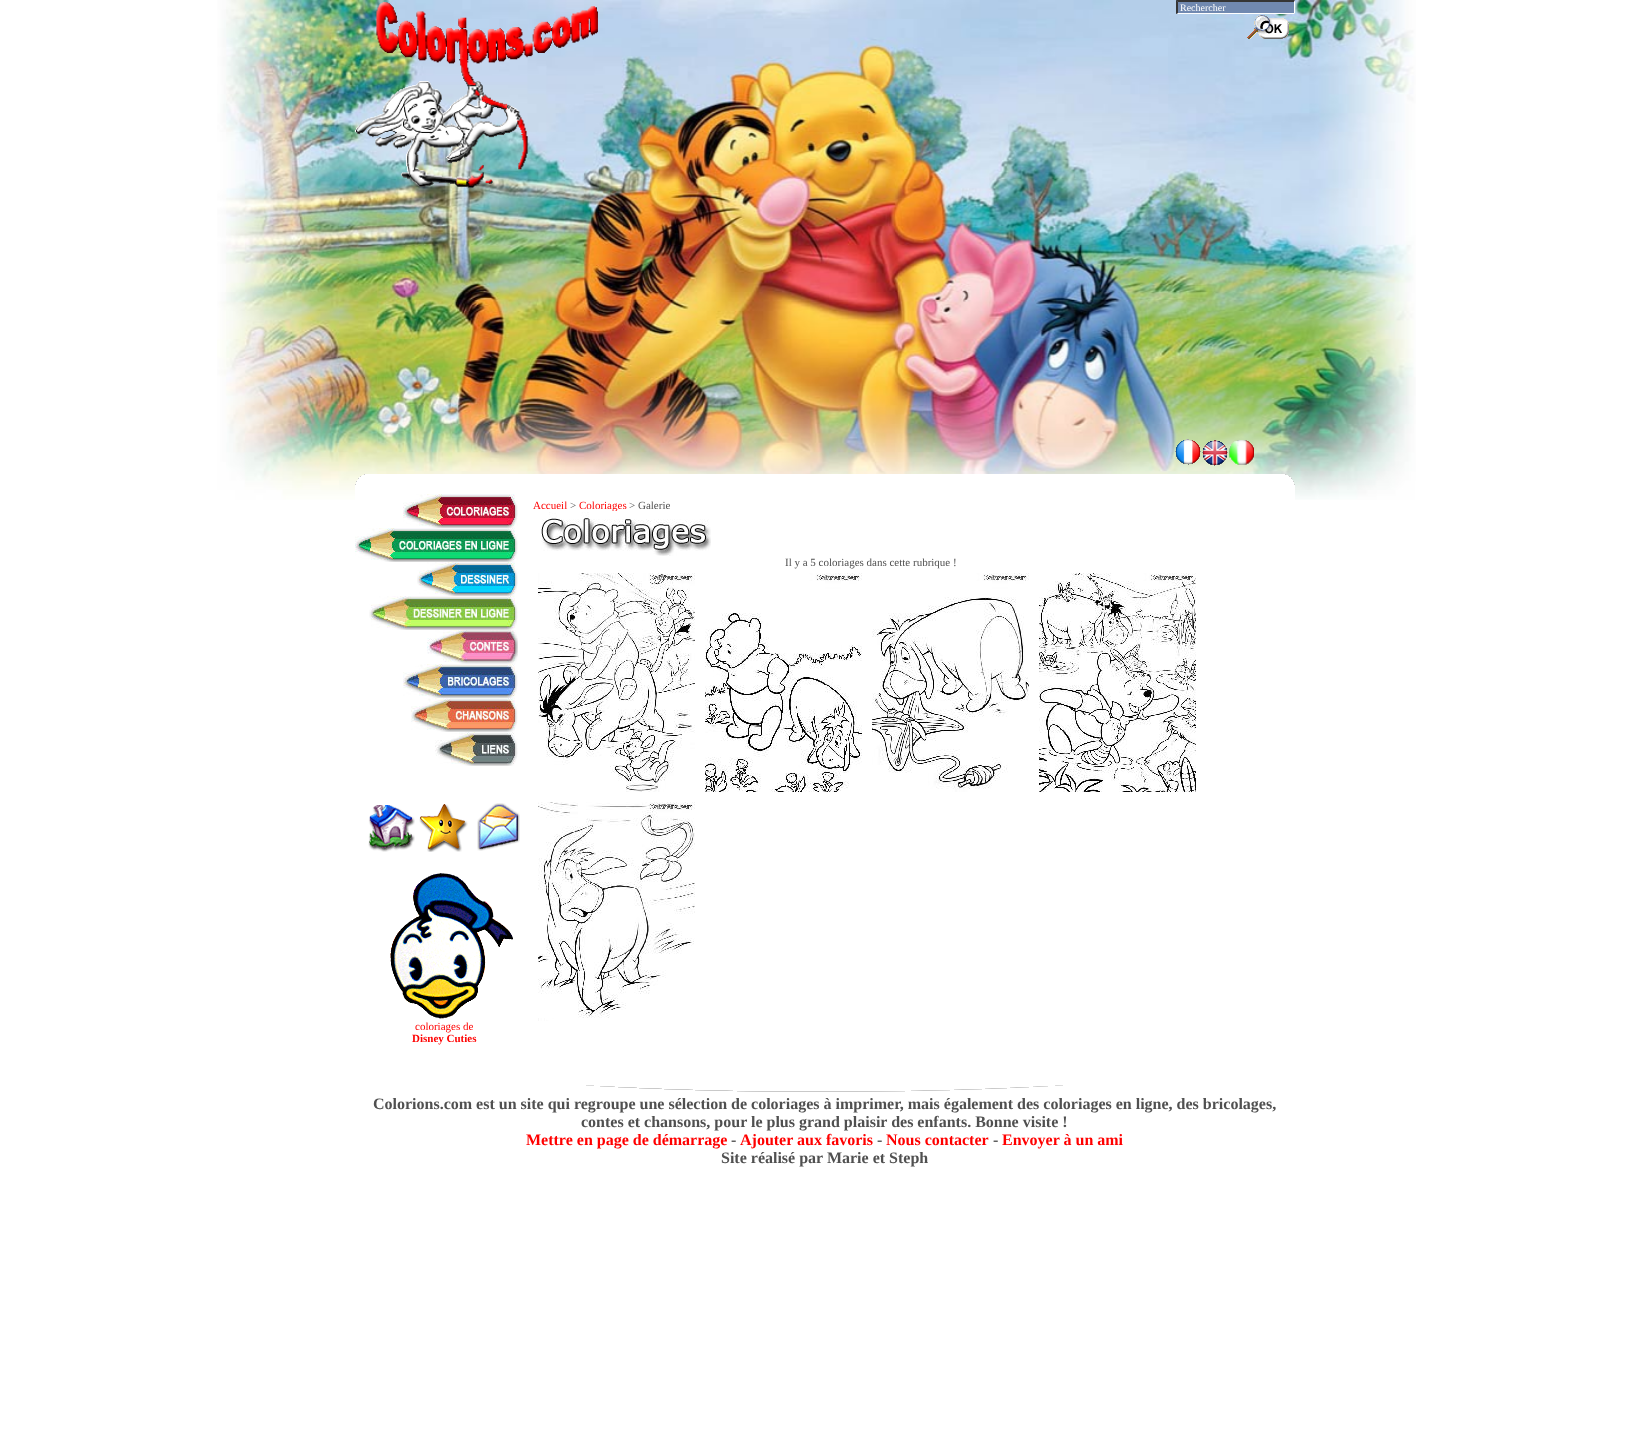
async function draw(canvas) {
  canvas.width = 1649;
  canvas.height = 1431;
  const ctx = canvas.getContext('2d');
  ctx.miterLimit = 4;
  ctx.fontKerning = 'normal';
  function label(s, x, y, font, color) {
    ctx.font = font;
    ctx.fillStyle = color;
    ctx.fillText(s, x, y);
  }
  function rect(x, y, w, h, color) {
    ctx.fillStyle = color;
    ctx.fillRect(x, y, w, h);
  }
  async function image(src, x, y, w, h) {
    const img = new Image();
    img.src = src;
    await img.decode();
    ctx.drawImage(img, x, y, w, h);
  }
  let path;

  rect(0, 0, 1649, 1431, '#fff');
  await image('assets/img1.png', 217, 0, 1199, 500);
  await image('assets/img2.png', 355, 2, 243, 186);
  rect(1176, 0, 119, 14, '#7189b0');
  ctx.fillStyle = '#353535';
  path = new Path2D('M1176 0H1295L1294 2H1178Z');
  ctx.fill(path);
  ctx.fillStyle = '#fff';
  path = new Path2D('M1295 0V14L1294 13V2Z');
  ctx.fill(path);
  path = new Path2D('M1295 14H1176L1178 13H1294Z');
  ctx.fill(path);
  ctx.fillStyle = '#353535';
  path = new Path2D('M1176 14V0L1178 2V13Z');
  ctx.fill(path);
  label('Rechercher', 1180, 11, '10px Liberation Serif', '#fff');
  await image('assets/img3.png', 1247, 15, 42, 24);
  await image('assets/img4.png', 1175, 439, 26, 26);
  await image('assets/img5.png', 1202, 440, 26, 26);
  await image('assets/img6.png', 1229, 440, 25, 25);
  await image('assets/img7.png', 355, 474, 50, 20);
  rect(405, 474, 840, 20, '#fff');
  await image('assets/img8.png', 1245, 474, 50, 20);
  rect(355, 494, 940, 6, '#fff');
  label('Accueil', 533, 509, '11px Liberation Serif', '#f00');
  label('>', 570, 509, '11px Liberation Serif', '#505050');
  label('Coloriages', 579, 509, '11px Liberation Serif', '#f00');
  label('> Galerie', 629, 509, '11px Liberation Serif', '#505050');
  await image('assets/img9.png', 541, 511, 170, 45);
  label('Il y a 5 coloriages dans cette rubrique !', 785, 566, '11px Liberation Serif', '#505050');
  await image('assets/img10.png', 538, 573, 157, 219);
  await image('assets/img11.png', 1039, 573, 157, 219);
  await image('assets/img12.png', 538, 802, 157, 219);
  await image('assets/img13.png', 872, 573, 157, 219);
  await image('assets/img14.png', 705, 573, 157, 219);
  await image('assets/img15.png', 403, 494, 115, 34);
  await image('assets/img16.png', 355, 528, 163, 34);
  await image('assets/img17.png', 417, 562, 101, 34);
  await image('assets/img18.png', 369, 596, 149, 34);
  await image('assets/img19.png', 427, 630, 91, 34);
  await image('assets/img20.png', 403, 664, 115, 34);
  await image('assets/img21.png', 411, 698, 107, 34);
  await image('assets/img22.png', 435, 732, 83, 34);
  await image('assets/img23.png', 368, 805, 47, 47);
  await image('assets/img24.png', 419, 804, 49, 48);
  await image('assets/img25.png', 477, 803, 43, 48);
  await image('assets/img26.png', 390, 873, 123, 146);
  label('coloriages de', 415, 1030, '11px Liberation Serif', '#f00');
  label('Disney Cuties', 412, 1042, 'bold 11px Liberation Serif', '#f00');
  await image('assets/img27.png', 586, 1085, 477, 7);
  label('Colorions.com est un site qui regroupe une sélection de coloriages à imprimer, mais également des coloriages en ligne, des bricolages,', 373, 1109, 'bold 16px Liberation Serif', '#505050');
  label('contes et chansons, pour le plus grand plaisir des enfants. Bonne visite !', 581, 1127, 'bold 16px Liberation Serif', '#505050');
  label('Mettre en page de démarrage', 526, 1145, 'bold 16px Liberation Serif', '#f00');
  label('-', 731, 1145, 'bold 16px Liberation Serif', '#505050');
  label('Ajouter aux favoris', 740, 1145, 'bold 16px Liberation Serif', '#f00');
  label('-', 877, 1145, 'bold 16px Liberation Serif', '#505050');
  label('Nous contacter', 886, 1145, 'bold 16px Liberation Serif', '#f00');
  label('-', 993, 1145, 'bold 16px Liberation Serif', '#505050');
  label('Envoyer à un ami', 1002, 1145, 'bold 16px Liberation Serif', '#f00');
  label('Site réalisé par Marie et Steph', 721, 1163, 'bold 16px Liberation Serif', '#505050');
}

draw(document.querySelector('canvas'));
